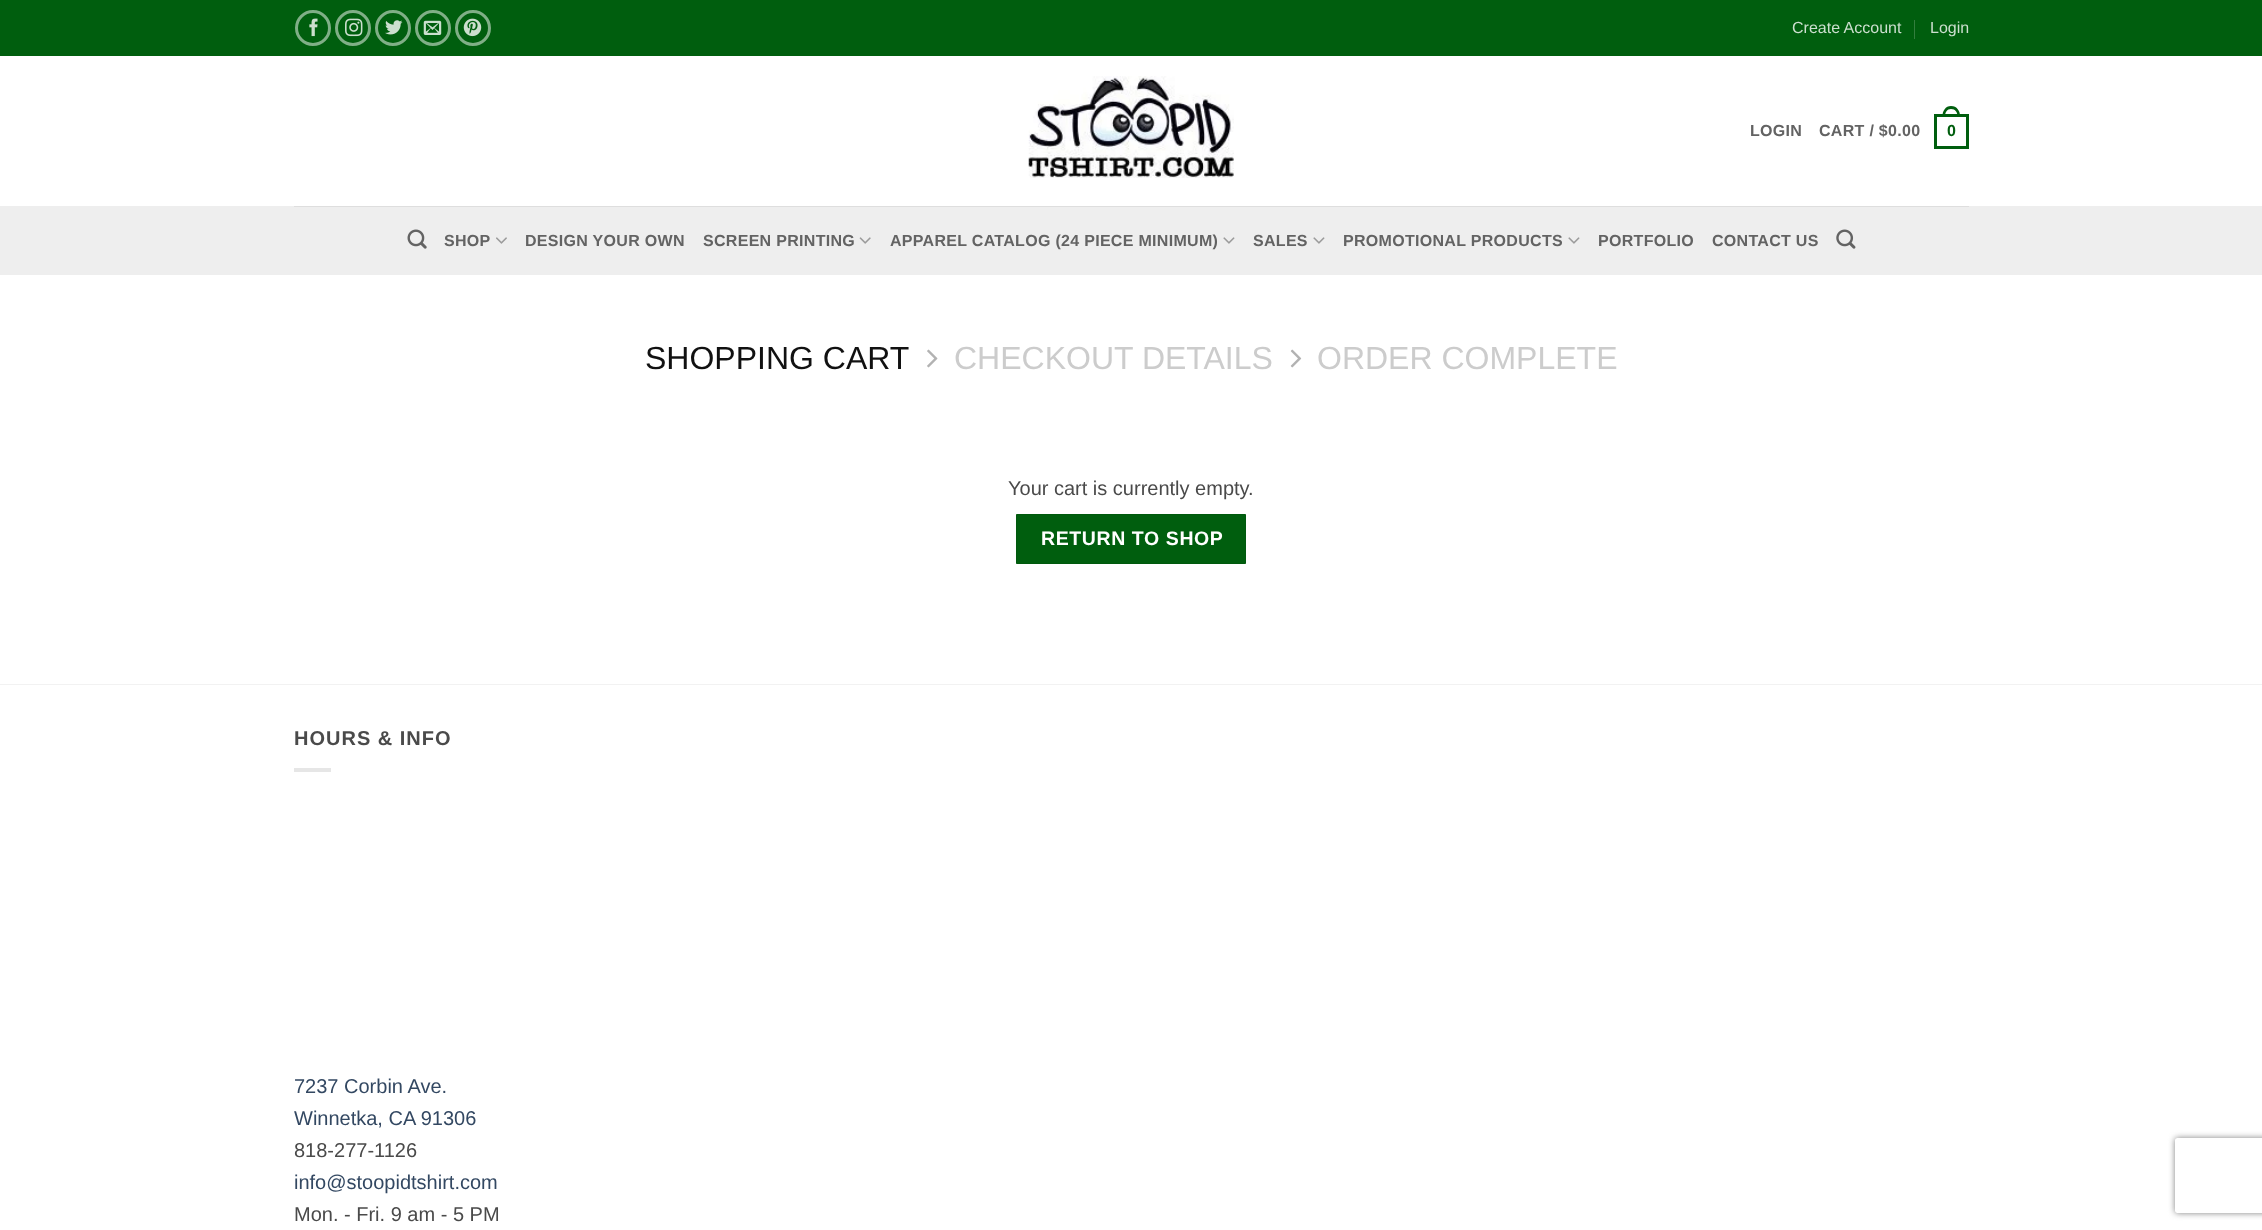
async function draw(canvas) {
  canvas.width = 2262;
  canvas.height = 1230;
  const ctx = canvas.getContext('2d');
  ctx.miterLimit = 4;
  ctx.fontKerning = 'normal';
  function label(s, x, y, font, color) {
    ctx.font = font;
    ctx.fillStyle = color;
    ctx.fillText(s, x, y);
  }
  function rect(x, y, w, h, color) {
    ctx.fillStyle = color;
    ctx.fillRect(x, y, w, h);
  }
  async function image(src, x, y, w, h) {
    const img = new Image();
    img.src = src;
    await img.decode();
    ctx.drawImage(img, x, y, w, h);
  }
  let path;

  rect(0, 0, 2262, 1230, '#fff');
  rect(0, 0, 2262, 56, '#005e0e');
  ctx.beginPath();
  ctx.arc(313, 28, 16.5, 0, 2 * Math.PI);
  ctx.strokeStyle = '#80af87';
  ctx.lineWidth = 3;
  ctx.stroke();
  await image('assets/img1.png', 309, 18, 9, 19);
  ctx.beginPath();
  ctx.arc(353, 28, 16.5, 0, 2 * Math.PI);
  ctx.stroke();
  await image('assets/img2.png', 345, 18, 18, 19);
  ctx.beginPath();
  ctx.arc(393, 28, 16.5, 0, 2 * Math.PI);
  ctx.stroke();
  await image('assets/img3.png', 385, 20, 18, 15);
  ctx.beginPath();
  ctx.arc(433, 28, 16.5, 0, 2 * Math.PI);
  ctx.stroke();
  await image('assets/img4.png', 423, 20, 19, 15);
  ctx.beginPath();
  ctx.arc(473, 28, 16.5, 0, 2 * Math.PI);
  ctx.stroke();
  await image('assets/img5.png', 463, 18, 19, 19);
  label('Create Account', 1792, 33, '16px Liberation Sans', '#ccdfcf');
  rect(1914, 20, 1, 19, '#337e3e');
  label('Login', 1930, 33, '16px Liberation Sans', '#ccdfcf');
  await image('assets/img6.png', 1028, 76, 206, 102);
  ctx.letterSpacing = '0.3px';
  label('LOGIN', 1750, 136, 'bold 16px Liberation Sans', '#636363');
  label('CART / $0.00', 1819, 136, 'bold 16px Liberation Sans', '#636363');
  ctx.strokeStyle = '#005e0e';
  ctx.strokeRect(1935.5, 115.5, 32, 32);
  ctx.fillStyle = '#005e0e';
  path = new Path2D('M1951 106C1957 106 1960 111 1960 116H1942.5C1942.5 111 1945.5 106 1951 106ZM1951 109C1955.5 109 1957.5 112.5 1957.5 116H1945C1945 112.5 1947 109 1951 109Z');
  ctx.fill(path, 'evenodd');
  label('0', 1947, 136, 'bold 16px Liberation Sans', '#005e0e');
  rect(0, 206, 2262, 69, '#eee');
  rect(294, 206, 1675, 1, '#dedede');
  await image('assets/img7.png', 407, 229, 20, 20);
  label('SHOP', 444, 246, 'bold 16px Liberation Sans', '#636363');
  await image('assets/img8.png', 496, 237, 11, 7);
  label('DESIGN YOUR OWN', 525, 246, 'bold 16px Liberation Sans', '#636363');
  label('SCREEN PRINTING', 703, 246, 'bold 16px Liberation Sans', '#636363');
  await image('assets/img9.png', 859, 237, 12, 7);
  label('APPAREL CATALOG (24 PIECE MINIMUM)', 890, 246, 'bold 16px Liberation Sans', '#636363');
  await image('assets/img10.png', 1223, 237, 12, 7);
  label('SALES', 1253, 246, 'bold 16px Liberation Sans', '#636363');
  await image('assets/img10.png', 1313, 237, 12, 7);
  label('PROMOTIONAL PRODUCTS', 1343, 246, 'bold 16px Liberation Sans', '#636363');
  await image('assets/img10.png', 1568, 237, 12, 7);
  label('PORTFOLIO', 1598, 246, 'bold 16px Liberation Sans', '#636363');
  label('CONTACT US', 1712, 246, 'bold 16px Liberation Sans', '#636363');
  await image('assets/img11.png', 1836, 229, 20, 20);
  ctx.letterSpacing = '0px';
  label('SHOPPING CART', 645, 369, '32px Liberation Sans', '#111');
  await image('assets/img12.png', 927, 349, 11, 19);
  label('CHECKOUT DETAILS', 954, 369, '32px Liberation Sans', '#ccc');
  await image('assets/img13.png', 1290, 349, 12, 19);
  label('ORDER COMPLETE', 1317, 369, '32px Liberation Sans', '#ccc');
  label('Your cart is currently empty.', 1008, 495, '20px Liberation Sans', '#4a4a4a');
  ctx.fillStyle = '#005e0e';
  ctx.beginPath();
  ctx.rect(1016.5, 514.5, 229, 49);
  ctx.fill();
  ctx.strokeStyle = '#00590d';
  ctx.lineWidth = 1;
  ctx.stroke();
  ctx.letterSpacing = '0.6px';
  label('RETURN TO SHOP', 1041, 545, 'bold 19.5px Liberation Sans', '#fff');
  rect(0, 684, 2262, 1, '#f2f2f2');
  ctx.letterSpacing = '1px';
  label('HOURS & INFO', 294, 745, 'bold 20px Liberation Sans', '#4a4a4a');
  rect(294, 768, 37, 4, '#e6e6e6');
  ctx.letterSpacing = '0px';
  label('7237 Corbin Ave.', 294, 1093, '20px Liberation Sans', '#334862');
  label('Winnetka, CA 91306', 294, 1125, '20px Liberation Sans', '#334862');
  label('818-277-1126', 294, 1157, '20px Liberation Sans', '#4a4a4a');
  label('info@stoopidtshirt.com', 294, 1189, '20px Liberation Sans', '#334862');
  label('Mon. - Fri. 9 am - 5 PM', 294, 1221, '20px Liberation Sans', '#4a4a4a');
  ctx.save();
  path = new Path2D('M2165 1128H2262V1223H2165ZM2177.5 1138H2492.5C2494 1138 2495 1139 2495 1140.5V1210.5C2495 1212 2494 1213 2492.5 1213H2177.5C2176 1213 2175 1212 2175 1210.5V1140.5C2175 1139 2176 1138 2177.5 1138Z');
  ctx.clip(path, 'evenodd');
  ctx.fillStyle = '#808080';
  ctx.filter = 'blur(3px)';
  ctx.beginPath();
  ctx.roundRect(2175, 1138, 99, 75, 2.5);
  ctx.fill();
  ctx.filter = 'none';
  ctx.restore();
}

draw(document.querySelector('canvas'));
